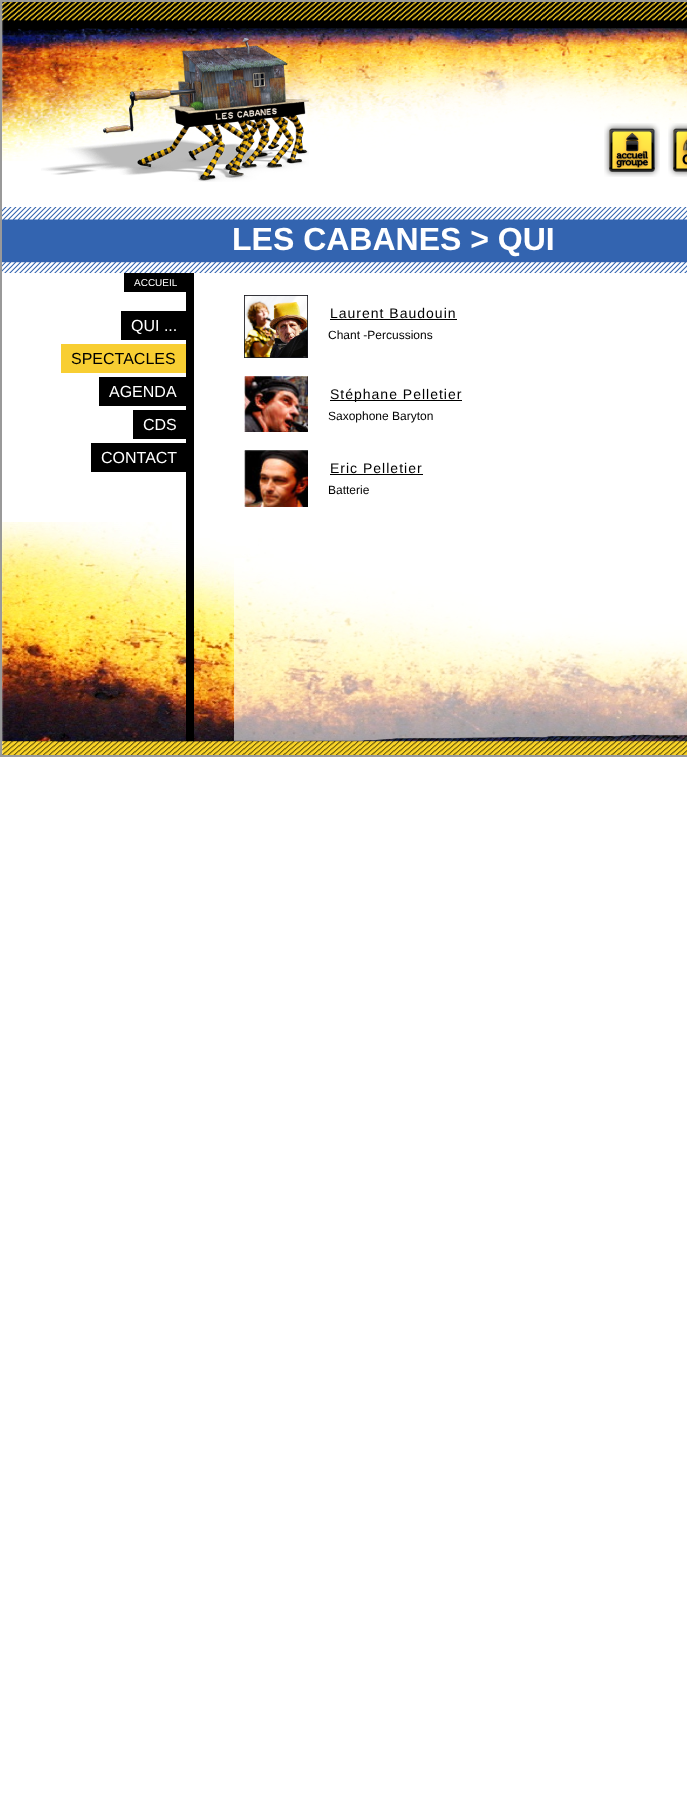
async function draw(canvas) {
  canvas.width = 687;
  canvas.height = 1799;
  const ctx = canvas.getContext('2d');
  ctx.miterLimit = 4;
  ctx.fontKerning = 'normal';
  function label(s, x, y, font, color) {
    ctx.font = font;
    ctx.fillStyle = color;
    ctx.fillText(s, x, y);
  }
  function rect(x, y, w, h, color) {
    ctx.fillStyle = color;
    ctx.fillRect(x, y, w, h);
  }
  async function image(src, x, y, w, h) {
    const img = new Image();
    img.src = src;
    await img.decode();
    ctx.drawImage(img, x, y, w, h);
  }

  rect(0, 0, 687, 1799, '#fff');
  ctx.strokeStyle = '#999';
  ctx.lineWidth = 2;
  ctx.strokeRect(1, 1, 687, 755);
  await image('assets/img1.png', 2, 2, 685, 159);
  await image('assets/img2.png', 41, 37, 268, 145);
  await image('assets/img3.png', 604, 123, 56, 54);
  await image('assets/img4.png', 668, 123, 19, 54);
  await image('assets/img5.png', 2, 522, 685, 221);
  await image('assets/img6.png', 2, 207, 685, 66);
  label('LES CABANES > QUI', 232, 250, 'bold 32px Liberation Sans', '#fff');
  rect(186, 273, 8, 469, '#000');
  rect(124, 273, 62, 19, '#000');
  label('ACCUEIL', 134, 286, '10px Liberation Sans', '#fff');
  rect(121, 311, 65, 29, '#000');
  label('QUI ...', 131, 331, '16px Liberation Sans', '#fff');
  rect(61, 344, 125, 29, '#f8ce32');
  label('SPECTACLES', 71, 364, '16px Liberation Sans', '#000');
  rect(99, 377, 87, 29, '#000');
  label('AGENDA', 109, 397, '16px Liberation Sans', '#fff');
  rect(133, 410, 53, 29, '#000');
  label('CDS', 143, 430, '16px Liberation Sans', '#fff');
  rect(91, 443, 95, 29, '#000');
  label('CONTACT', 101, 463, '16px Liberation Sans', '#fff');
  await image('assets/img7.png', 234, 558, 453, 185);
  await image('assets/img8.png', 244, 295, 64, 63);
  ctx.letterSpacing = '1px';
  label('Laurent Baudouin', 330, 318, '14px Liberation Sans', '#000');
  rect(330, 319, 127, 1, '#000');
  ctx.letterSpacing = '0px';
  label('Chant -Percussions', 328, 339, '12px Liberation Sans', '#000');
  await image('assets/img9.png', 244, 376, 64, 56);
  rect(330, 400, 132, 1, '#000');
  ctx.letterSpacing = '1px';
  label('Stéphane Pelletier', 330, 399, '14px Liberation Sans', '#000');
  ctx.letterSpacing = '0px';
  label('Saxophone Baryton', 328, 420, '12px Liberation Sans', '#000');
  await image('assets/img10.png', 244, 450, 64, 57);
  ctx.letterSpacing = '1px';
  label('Eric Pelletier', 330, 473, '14px Liberation Sans', '#000');
  rect(330, 474, 93, 1, '#000');
  ctx.letterSpacing = '0px';
  label('Batterie', 328, 494, '12px Liberation Sans', '#000');
  await image('assets/img11.png', 2, 734, 685, 21);
}

draw(document.querySelector('canvas'));
